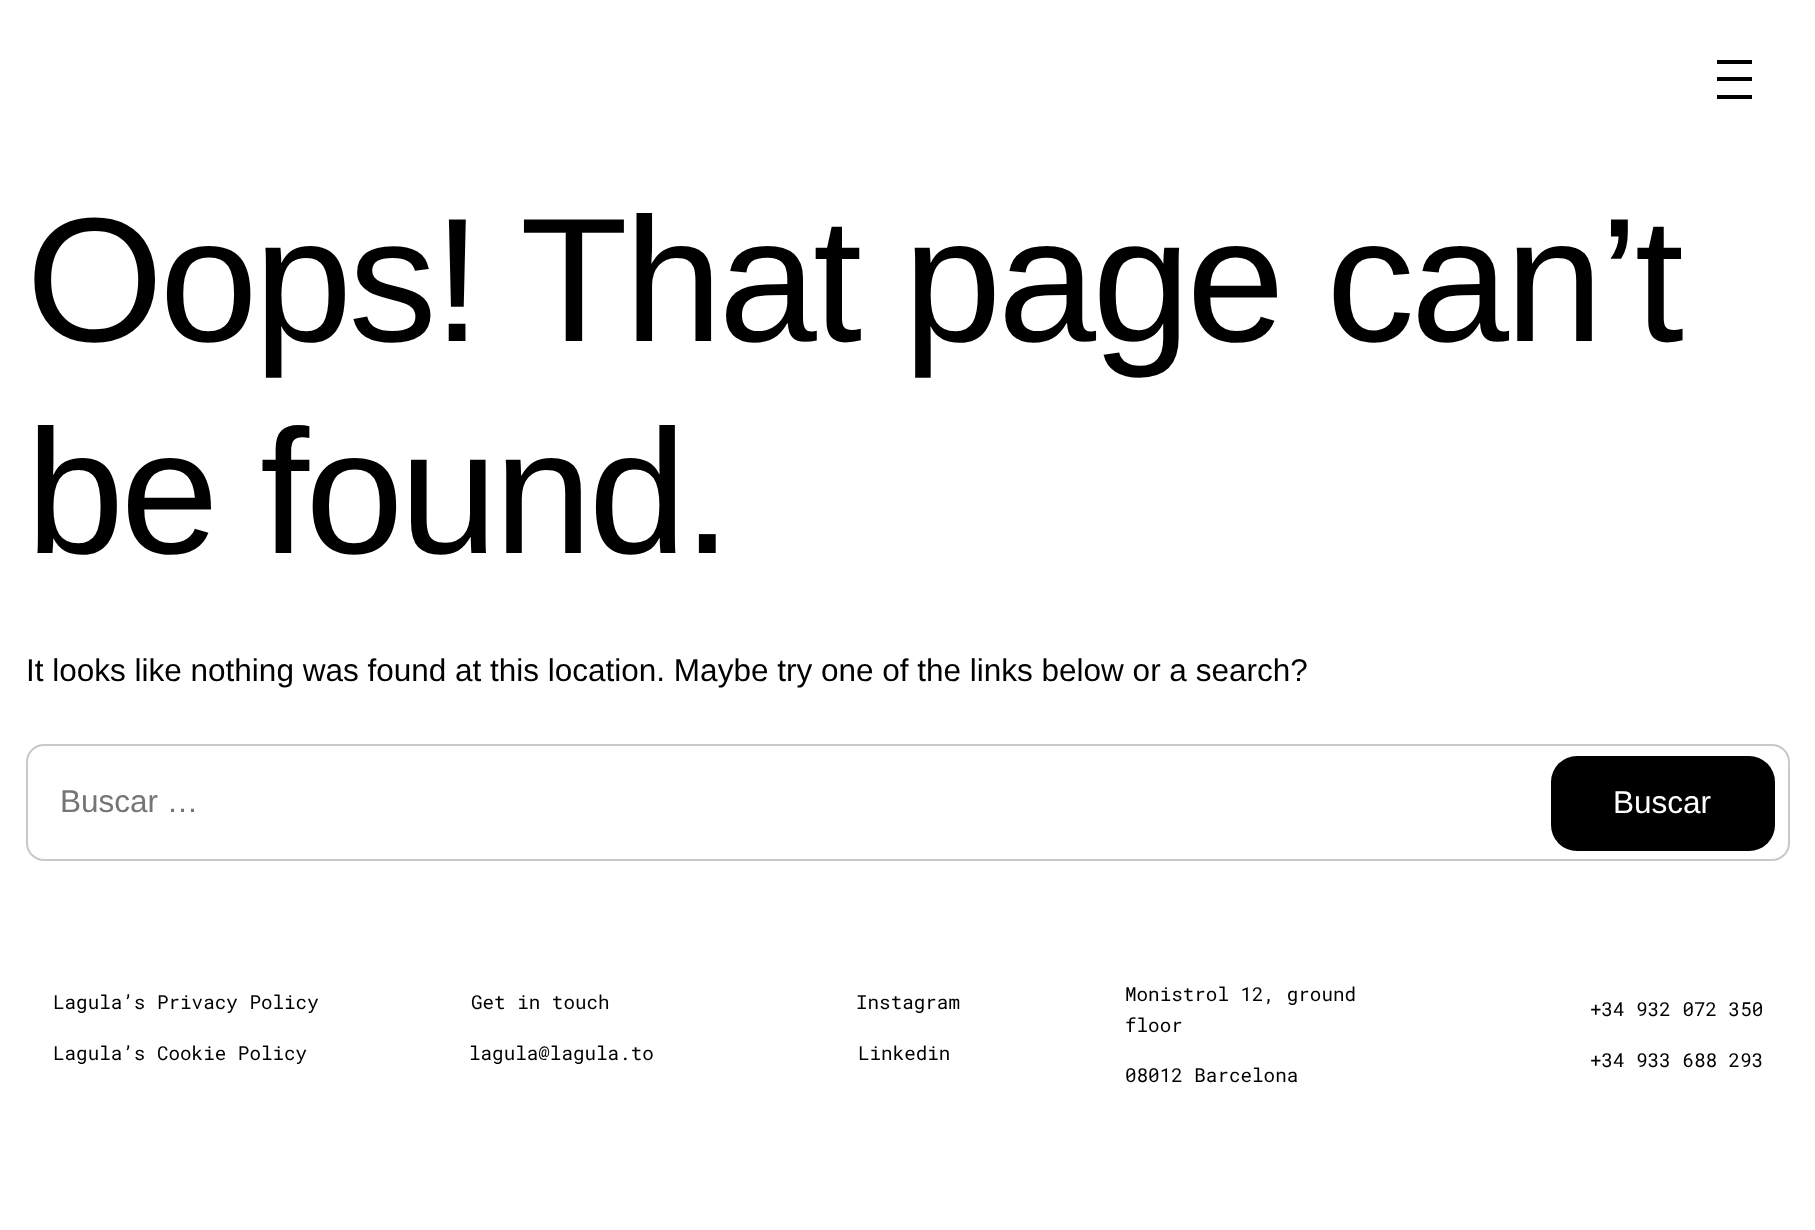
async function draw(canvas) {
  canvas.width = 1815;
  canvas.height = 1230;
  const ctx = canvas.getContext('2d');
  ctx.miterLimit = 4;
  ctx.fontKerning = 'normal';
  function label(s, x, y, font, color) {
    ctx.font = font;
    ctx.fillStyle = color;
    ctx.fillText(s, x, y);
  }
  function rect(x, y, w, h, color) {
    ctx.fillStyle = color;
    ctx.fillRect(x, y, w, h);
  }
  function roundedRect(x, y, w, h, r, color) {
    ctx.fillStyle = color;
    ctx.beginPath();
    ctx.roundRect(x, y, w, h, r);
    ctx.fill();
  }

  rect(0, 0, 1815, 1230, '#fff');
  rect(1717, 77, 35, 4, '#000');
  rect(1717, 60, 35, 4, '#000');
  rect(1717, 95, 35, 4, '#000');
  ctx.letterSpacing = '-3.9px';
  label('Oops! That page can’t', 26, 341, '176.75px Liberation Sans', '#000');
  label('be found.', 26, 553, '176.75px Liberation Sans', '#000');
  ctx.letterSpacing = '0px';
  label('It looks like nothing was found at this location. Maybe try one of the links below or a search?', 26, 681, '31.5px Liberation Sans', '#000');
  ctx.beginPath();
  ctx.roundRect(27, 745, 1762, 115, 17);
  ctx.strokeStyle = '#c9c9c9';
  ctx.lineWidth = 2;
  ctx.stroke();
  label('Buscar …', 60, 812, '31.5px Liberation Sans', '#757575');
  roundedRect(1551, 756, 224, 95, 26, '#000');
  label('Buscar', 1613, 813, '31.5px Liberation Sans', '#fff');
  label('Lagula’s Privacy Policy', 53, 1009, '19.25px Roboto Mono', '#000');
  label('Lagula’s Cookie Policy', 53, 1060, '19.25px Roboto Mono', '#000');
  label('Get in touch', 471, 1009, '19.25px Roboto Mono', '#000');
  label('lagula@lagula.to', 469, 1060, '19.25px Roboto Mono', '#000');
  label('Instagram', 856, 1009, '19.25px Roboto Mono', '#000');
  label('Linkedin', 858, 1060, '19.25px Roboto Mono', '#000');
  label('Monistrol 12, ground', 1125, 1001, '19.25px Roboto Mono', '#000');
  label('floor', 1125, 1032, '19.25px Roboto Mono', '#000');
  label('08012 Barcelona', 1125, 1082, '19.25px Roboto Mono', '#000');
  label('+34 932 072 350', 1590, 1016, '19.25px Roboto Mono', '#000');
  label('+34 933 688 293', 1590, 1067, '19.25px Roboto Mono', '#000');
}

draw(document.querySelector('canvas'));
